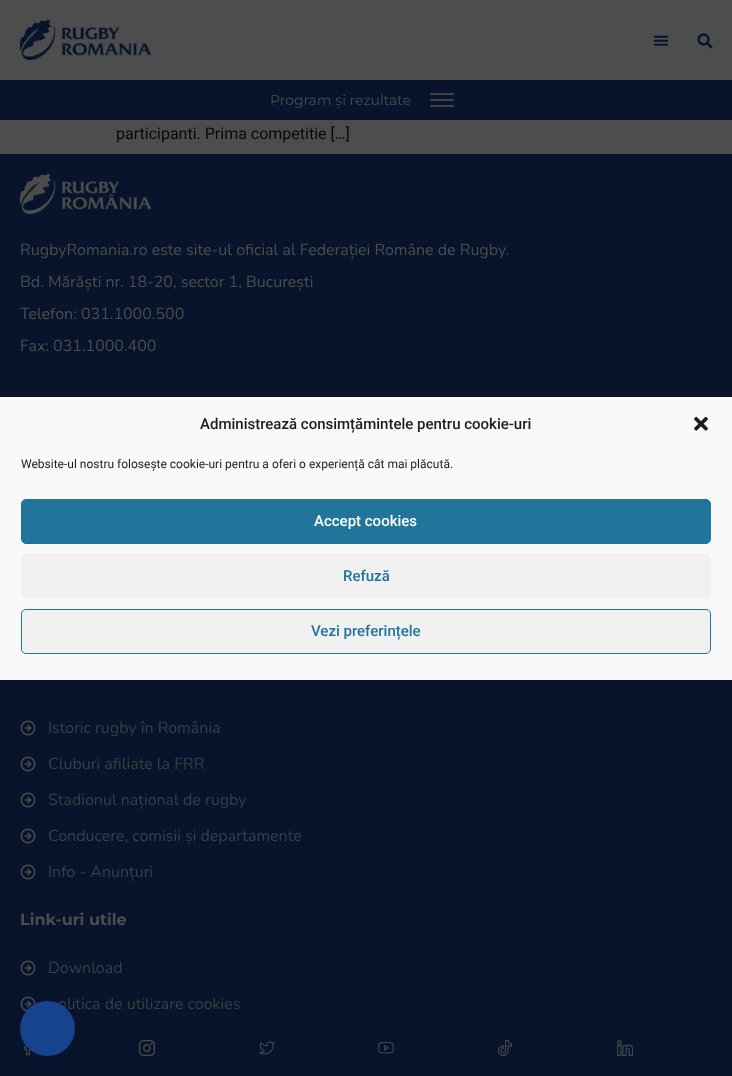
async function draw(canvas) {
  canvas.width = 732;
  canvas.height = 1076;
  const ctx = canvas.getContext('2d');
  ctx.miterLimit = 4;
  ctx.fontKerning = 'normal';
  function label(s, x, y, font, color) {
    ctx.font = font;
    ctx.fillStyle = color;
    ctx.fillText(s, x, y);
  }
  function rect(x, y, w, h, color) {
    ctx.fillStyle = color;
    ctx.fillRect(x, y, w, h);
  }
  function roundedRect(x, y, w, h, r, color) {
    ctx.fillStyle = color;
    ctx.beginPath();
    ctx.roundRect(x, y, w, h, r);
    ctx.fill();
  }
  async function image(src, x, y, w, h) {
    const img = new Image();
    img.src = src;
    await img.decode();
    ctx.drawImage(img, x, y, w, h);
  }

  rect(0, 0, 732, 1076, '#4d4d4d');
  rect(0, 80, 732, 40, '#07142b');
  roundedRect(430, 93, 24, 2, 1, '#424242');
  ctx.fillStyle = '#00000026';
  ctx.filter = 'blur(5px)';
  ctx.beginPath();
  ctx.rect(0, 0, 732, 80);
  ctx.fill();
  ctx.filter = 'none';
  rect(0, 0, 732, 80, '#4d4d4d');
  await image('assets/img1.png', 20, 20, 132, 40);
  await image('assets/img2.png', 653, 35, 16, 11);
  await image('assets/img3.png', 697, 33, 16, 16);
  label('Program și rezultate', 270, 105, '14px Montserrat', '#4d4d4d');
  roundedRect(430, 99, 24, 2, 1, '#424242');
  roundedRect(430, 105, 24, 2, 1, '#424242');
  label('participanti. Prima competitie […]', 116, 139, '16px Roboto', '#080808');
  rect(0, 154, 732, 922, '#07142b');
  await image('assets/img4.png', 20, 174, 132, 40);
  label('RugbyRomania.ro este site-ul oficial al Federației Române de Rugby.', 20, 255, '16px Nunito', '#4d4d4d');
  label('Bd. Mărăști nr. 18-20, sector 1, București', 20, 287, '16px Nunito', '#4d4d4d');
  label('Telefon: 031.1000.500', 20, 319, '16px Nunito', '#4d4d4d');
  label('Fax: 031.1000.400', 20, 351, '16px Nunito', '#4d4d4d');
  await image('assets/img5.png', 20, 720, 16, 16);
  label('Istoric rugby în România', 48, 733, '16px Nunito', '#3b3e44');
  await image('assets/img5.png', 20, 756, 16, 16);
  label('Cluburi afiliate la FRR', 48, 769, '16px Nunito', '#3b3e44');
  await image('assets/img5.png', 20, 792, 16, 16);
  label('Stadionul național de rugby', 48, 805, '16px Nunito', '#3b3e44');
  await image('assets/img5.png', 20, 828, 16, 16);
  label('Conducere, comisii și departamente', 48, 841, '16px Nunito', '#3b3e44');
  await image('assets/img5.png', 20, 864, 16, 16);
  label('Info - Anunțuri', 48, 877, '16px Nunito', '#3b3e44');
  label('Link-uri utile', 20, 925, 'bold 16px Montserrat', '#4d4d4d');
  await image('assets/img5.png', 20, 960, 16, 16);
  label('Download', 48, 973, '16px Nunito', '#3b3e44');
  await image('assets/img5.png', 20, 996, 16, 16);
  label('olitica de utilizare cookies', 58, 1009, '16px Nunito', '#3b3e44');
  await image('assets/img6.png', 24, 1045, 7, 11);
  await image('assets/img7.png', 139, 1040, 16, 16);
  await image('assets/img8.png', 259, 1041, 16, 14);
  await image('assets/img9.png', 378, 1042, 16, 12);
  await image('assets/img10.png', 498, 1040, 15, 16);
  await image('assets/img11.png', 617, 1040, 16, 16);
  rect(0, 397, 732, 283, '#f9f9f9');
  label('Administrează consimțămintele pentru cookie-uri', 200, 429, '500 15px Roboto', '#191e23');
  await image('assets/img12.png', 694, 416, 14, 15);
  label('Website-ul nostru folosește cookie-uri pentru a oferi o experiență cât mai plăcută.', 21, 468, '12px Roboto', '#191e23');
  ctx.fillStyle = '#21759b';
  ctx.beginPath();
  ctx.roundRect(21.5, 499.5, 689, 44, 4.5);
  ctx.fill();
  ctx.strokeStyle = '#21759b';
  ctx.stroke();
  label('Accept cookies', 314, 526, '500 15px Roboto', '#fff');
  roundedRect(21, 554, 690, 45, 5, '#f1f1f1');
  label('Refuză', 343, 581, '500 15px Roboto', '#21759b');
  ctx.fillStyle = '#f1f1f1';
  ctx.beginPath();
  ctx.roundRect(21.5, 609.5, 689, 44, 4.5);
  ctx.fill();
  ctx.stroke();
  label('Vezi preferințele', 311, 636, '500 15px Roboto', '#21759b');
  ctx.fillStyle = '#16428e';
  ctx.beginPath();
  ctx.arc(47.5, 1028.5, 27.5, 0, 2 * Math.PI);
  ctx.fill();
}

draw(document.querySelector('canvas'));
